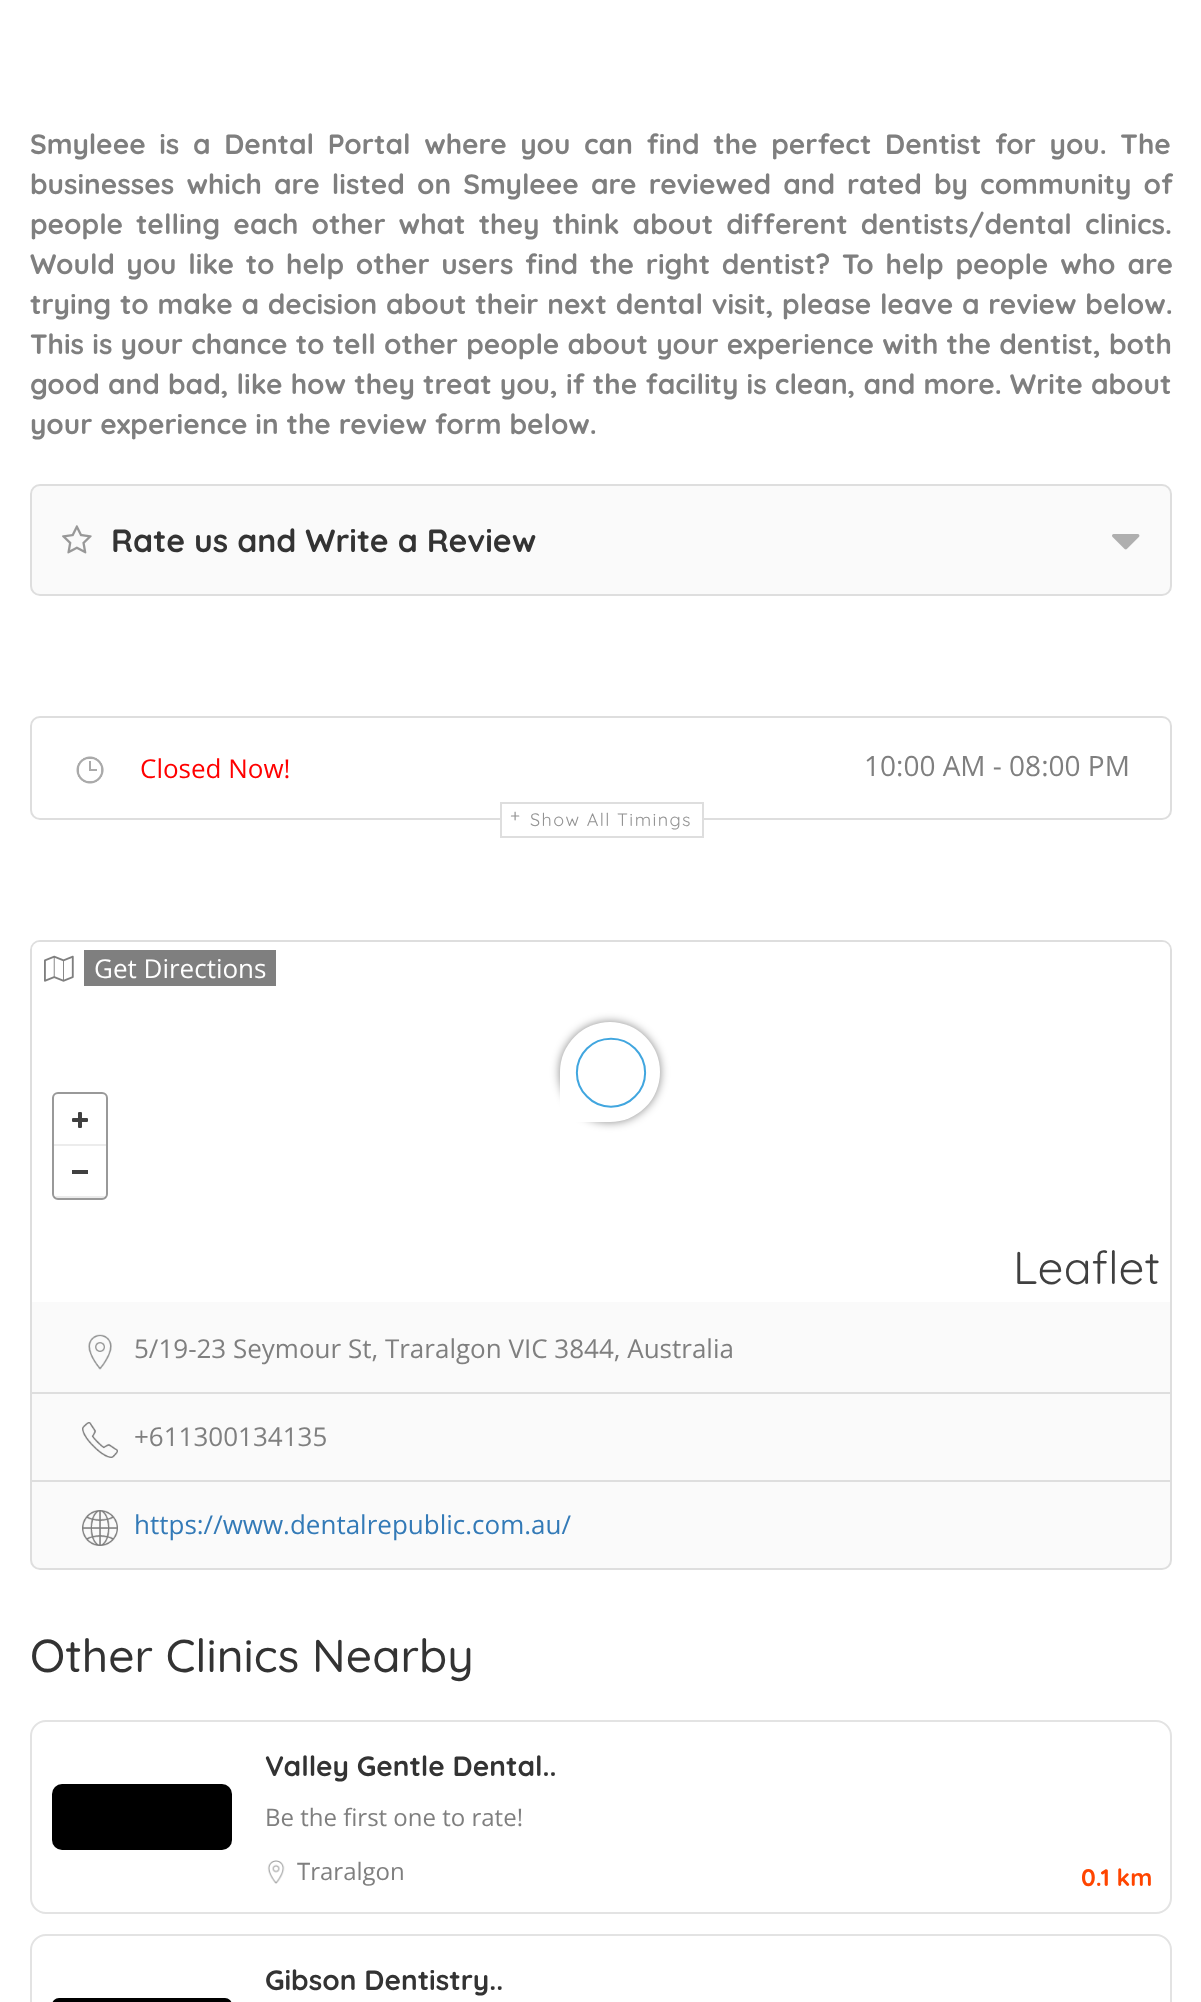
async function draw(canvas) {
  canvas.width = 1201;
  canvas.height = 2002;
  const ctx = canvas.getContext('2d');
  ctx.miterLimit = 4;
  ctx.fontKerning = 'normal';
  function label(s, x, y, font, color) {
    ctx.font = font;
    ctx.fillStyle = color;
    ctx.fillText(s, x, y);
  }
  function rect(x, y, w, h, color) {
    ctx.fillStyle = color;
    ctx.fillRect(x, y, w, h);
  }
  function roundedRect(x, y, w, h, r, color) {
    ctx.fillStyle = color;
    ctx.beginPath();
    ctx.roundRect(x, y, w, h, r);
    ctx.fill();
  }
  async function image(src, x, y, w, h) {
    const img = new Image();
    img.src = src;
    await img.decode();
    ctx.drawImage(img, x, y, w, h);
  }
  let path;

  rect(0, 0, 1201, 2002, '#fff');
  ctx.wordSpacing = '5.75px';
  label('Smyleee is a Dental Portal where you can find the perfect Dentist for you. The', 30, 154, 'bold 28px Quicksand', '#7f7f7f');
  ctx.wordSpacing = '4.25px';
  label('businesses which are listed on Smyleee are reviewed and rated by community of', 30, 194, 'bold 28px Quicksand', '#7f7f7f');
  ctx.wordSpacing = '5.25px';
  label('people telling each other what they think about different dentists/dental clinics.', 30, 234, 'bold 28px Quicksand', '#7f7f7f');
  ctx.wordSpacing = '3.75px';
  label('Would you like to help other users find the right dentist?', 30, 274, 'bold 28px Quicksand', '#7f7f7f');
  ctx.wordSpacing = '4px';
  label('To help people who are', 842, 274, 'bold 28px Quicksand', '#7f7f7f');
  ctx.wordSpacing = '0.9px';
  label('trying to make a decision about their next dental visit, please leave a review below.', 30, 314, 'bold 28px Quicksand', '#7f7f7f');
  ctx.wordSpacing = '0.4px';
  label('This is your chance to tell other people about your experience with the dentist, both', 30, 354, 'bold 28px Quicksand', '#7f7f7f');
  ctx.wordSpacing = '0.3px';
  label('good and bad, like how they treat you, if the facility is clean, and more. Write about', 30, 394, 'bold 28px Quicksand', '#7f7f7f');
  ctx.wordSpacing = '0px';
  label('your experience in the review form below.', 30, 434, 'bold 28px Quicksand', '#7f7f7f');
  ctx.fillStyle = '#fafafa';
  ctx.beginPath();
  ctx.roundRect(31, 485, 1140, 110, 9);
  ctx.fill();
  ctx.strokeStyle = '#dedede';
  ctx.lineWidth = 2;
  ctx.stroke();
  await image('assets/img1.png', 62, 525, 30, 29);
  label('Rate us and Write a Review', 111, 552, 'bold 32px Quicksand', '#333');
  await image('assets/img2.png', 1112, 534, 28, 16);
  ctx.beginPath();
  ctx.roundRect(31, 717, 1140, 102, 9);
  ctx.stroke();
  await image('assets/img3.png', 76, 756, 28, 28);
  label('Closed Now!', 140, 778, '26px Open Sans', '#f00');
  label('10:00 AM - 08:00 PM', 864, 776, '28px Open Sans', '#7f7f7f');
  rect(502, 818, 200, 2, '#fff');
  ctx.strokeRect(501, 803, 202, 34);
  ctx.letterSpacing = '1.4px';
  label('+', 510, 822, '18px Quicksand', '#939393');
  label('Show All Timings', 530, 826, '18px Quicksand', '#939393');
  ctx.fillStyle = '#fafafa';
  ctx.beginPath();
  ctx.roundRect(31, 941, 1140, 628, 9);
  ctx.fill();
  ctx.stroke();
  ctx.fillStyle = '#fff';
  ctx.beginPath();
  ctx.roundRect(32, 942, 1138, 360, [8, 8, 0, 0]);
  ctx.fill();
  await image('assets/img4.png', 44, 955, 30, 27);
  rect(84, 950, 192, 36, '#7f7f7f');
  ctx.letterSpacing = '0px';
  label('Get Directions', 94, 978, '26px Open Sans', '#fff');
  ctx.fillStyle = '#00000078';
  ctx.filter = 'blur(5px)';
  ctx.beginPath();
  ctx.roundRect(560, 1022, 100, 100, 50);
  ctx.fill();
  ctx.filter = 'none';
  ctx.fillStyle = '#fff';
  ctx.beginPath();
  ctx.roundRect(560, 1022, 100, 100, [50, 50, 50, 0]);
  ctx.fill();
  path = new Path2D('M635 1048.5C648.5 1062 648.5 1083.5 635 1096.5C622 1110 600 1110 587 1096.5C573.5 1083.5 573.5 1062 587 1048.5C600 1035.5 622 1035.5 635 1048.5Z');
  ctx.strokeStyle = '#41a6df';
  ctx.stroke(path);
  ctx.beginPath();
  ctx.roundRect(53, 1093, 54, 106, 5);
  ctx.strokeStyle = '#999';
  ctx.stroke();
  await image('assets/img5.png', 72, 1112, 16, 16);
  rect(54, 1144, 52, 2, '#ececec');
  rect(72, 1170, 16, 4, '#404040');
  rect(54, 1196, 52, 2, '#00000014');
  label('Leaflet', 1013, 1284, '46px Quicksand', '#404040');
  rect(32, 1392, 1138, 2, '#dedede');
  await image('assets/img6.png', 88, 1334, 24, 36);
  label('5/19-23 Seymour St, Traralgon VIC 3844, Australia', 134, 1358, '26px Open Sans', '#7f7f7f');
  rect(32, 1480, 1138, 2, '#dedede');
  await image('assets/img7.png', 82, 1422, 36, 36);
  label('+611300134135', 134, 1446, '26px Open Sans', '#7f7f7f');
  await image('assets/img8.png', 82, 1510, 36, 36);
  label('https://www.dentalrepublic.com.au/', 134, 1534, '26px Open Sans', '#337ab7');
  label('Other Clinics Nearby', 30, 1672, '500 46px Quicksand', '#333');
  ctx.beginPath();
  ctx.roundRect(31, 1721, 1140, 192, 15);
  ctx.strokeStyle = '#e3e3e3';
  ctx.stroke();
  roundedRect(52, 1784, 180, 66, 10, '#000');
  label('Valley Gentle Dental..', 265, 1776, 'bold 28px Quicksand', '#333');
  label('Be the first one to rate!', 265, 1826, '24px Open Sans', '#7f7f7f');
  await image('assets/img9.png', 267, 1860, 18, 24);
  label('Traralgon', 297, 1880, '24px Open Sans', '#7f7f7f');
  label('0.1 km', 1081, 1886, 'bold 24px Quicksand', '#ff4500');
  ctx.beginPath();
  ctx.roundRect(31, 1935, 1140, 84, 15);
  ctx.stroke();
  label('Gibson Dentistry..', 265, 1990, 'bold 28px Quicksand', '#333');
  roundedRect(52, 1998, 180, 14, 10, '#000');
}

draw(document.querySelector('canvas'));
